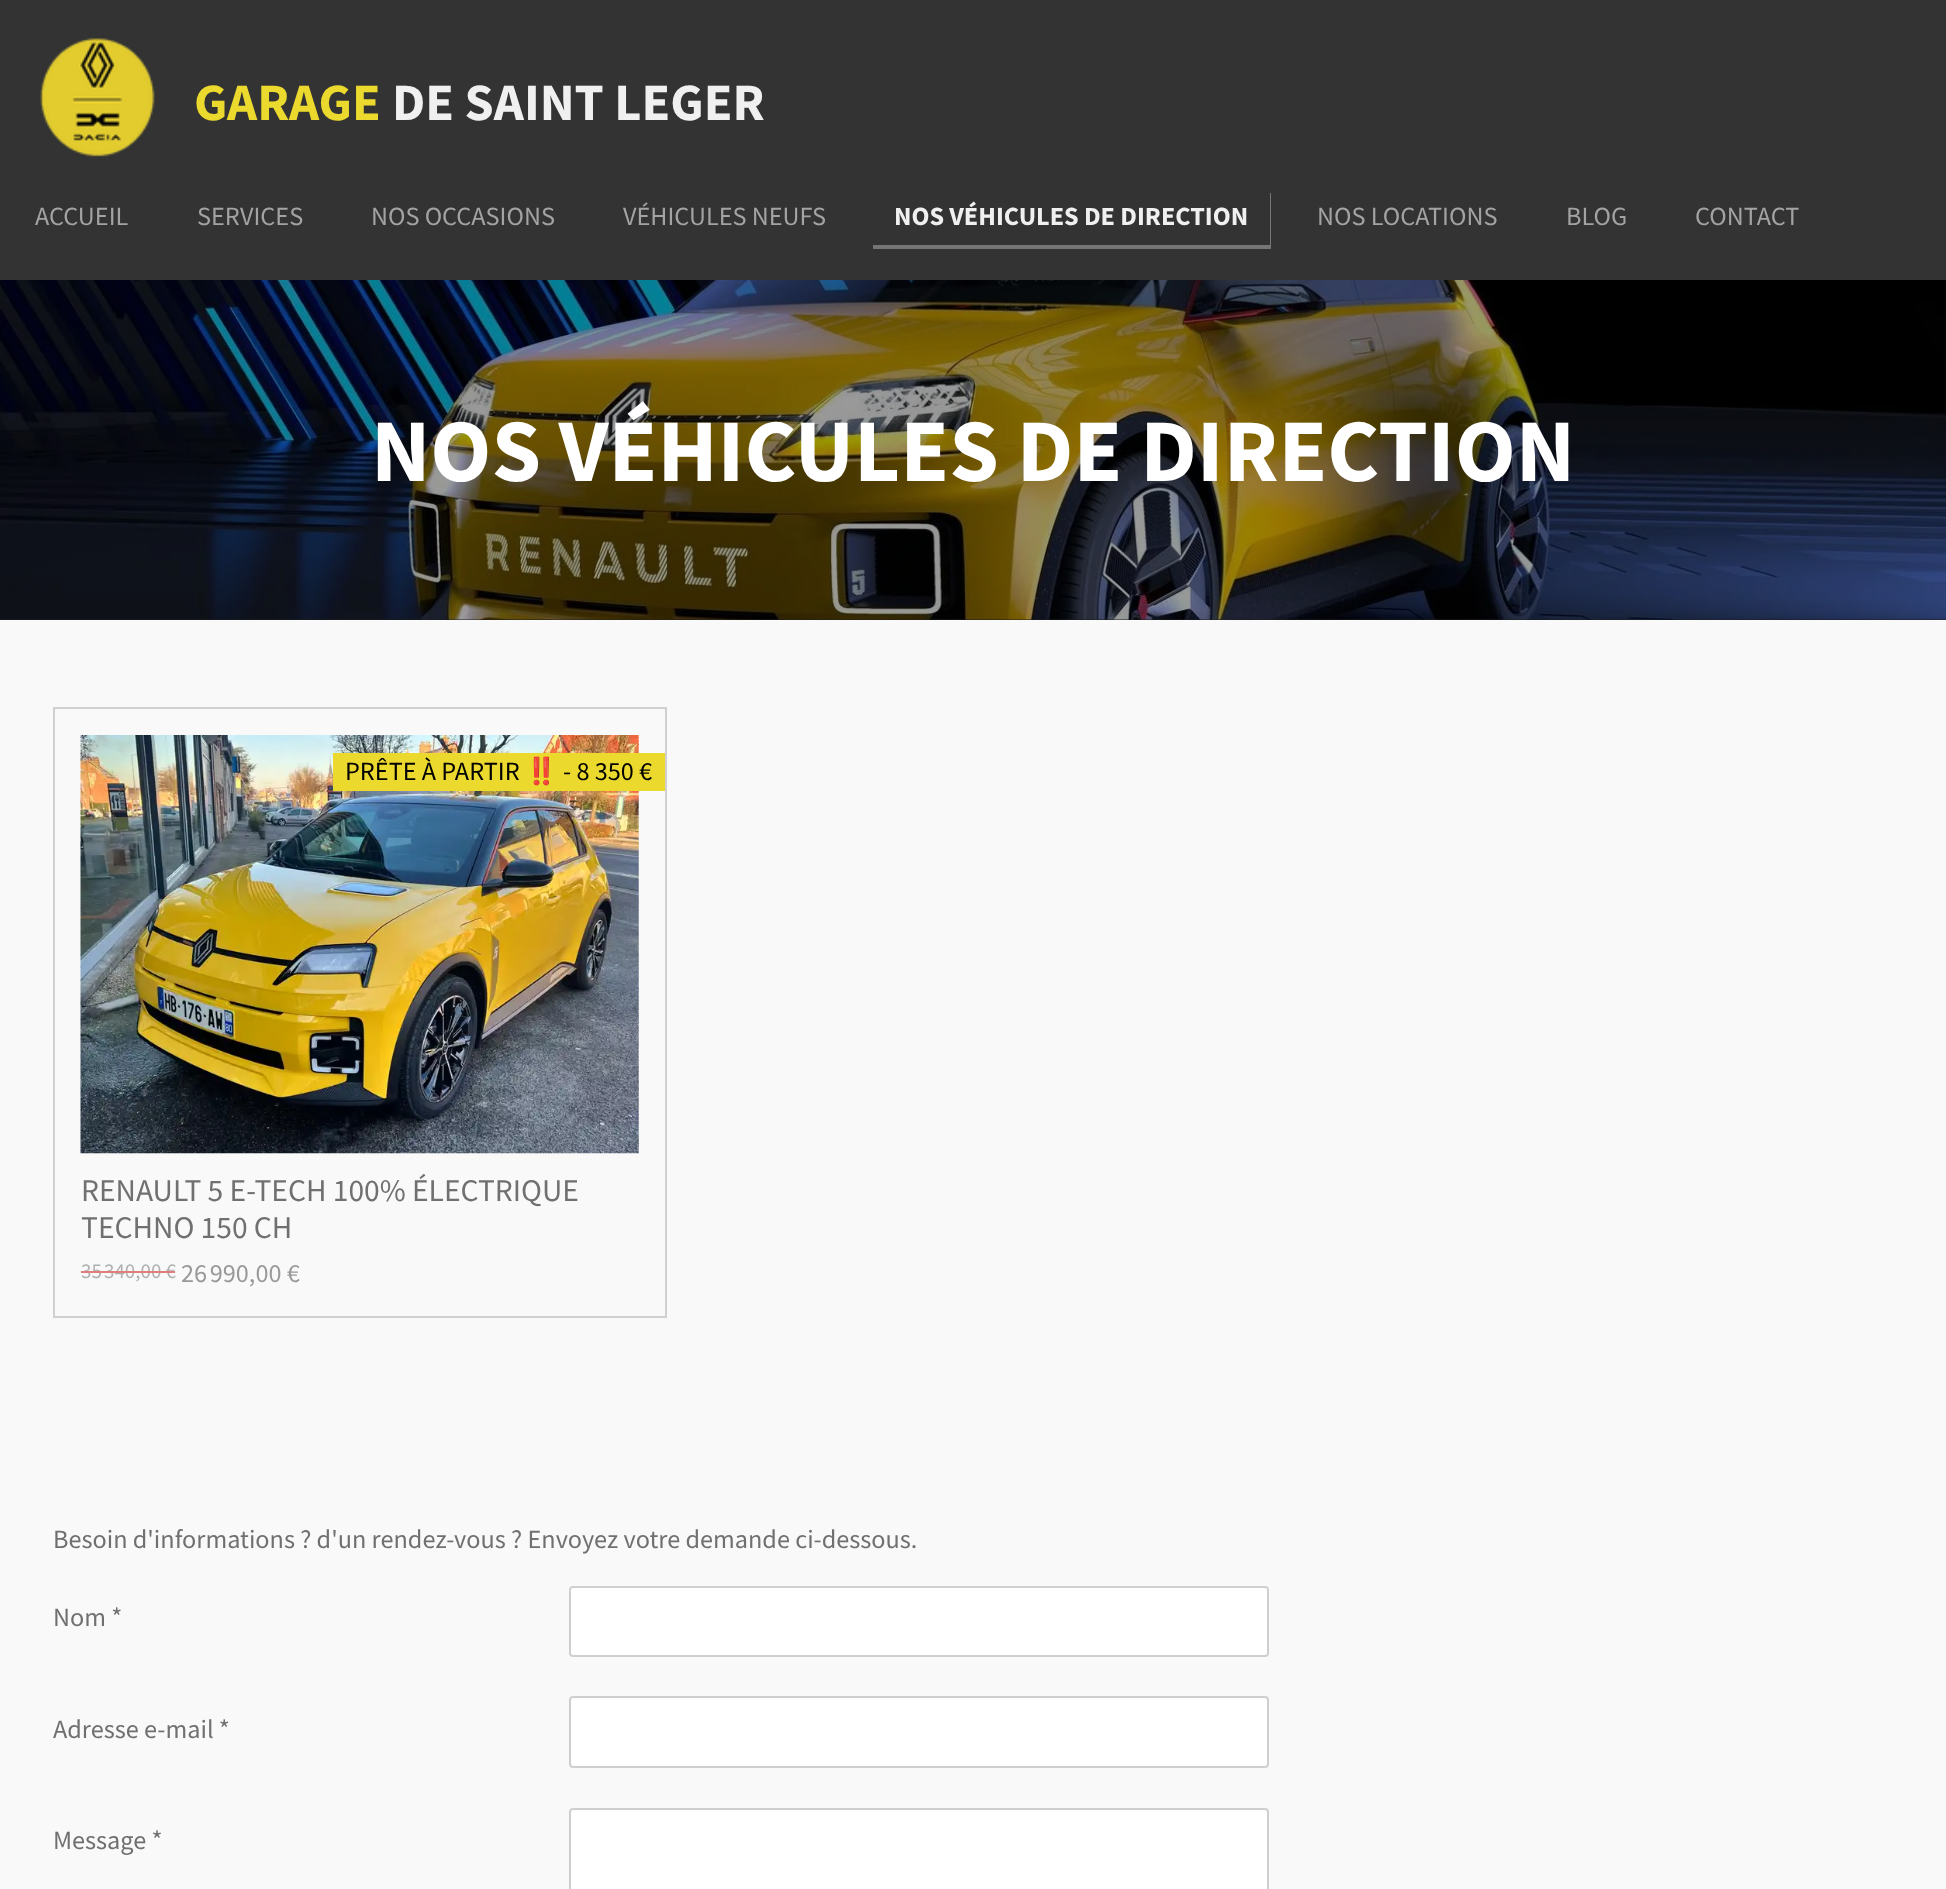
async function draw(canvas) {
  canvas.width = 1946;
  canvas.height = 1889;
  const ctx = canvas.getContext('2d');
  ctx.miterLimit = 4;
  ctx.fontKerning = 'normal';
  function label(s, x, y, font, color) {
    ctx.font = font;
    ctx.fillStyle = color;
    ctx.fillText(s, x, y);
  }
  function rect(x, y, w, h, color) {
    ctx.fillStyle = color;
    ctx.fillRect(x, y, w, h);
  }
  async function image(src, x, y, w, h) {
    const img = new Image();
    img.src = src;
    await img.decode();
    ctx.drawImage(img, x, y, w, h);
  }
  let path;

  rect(0, 0, 1946, 1889, '#333');
  rect(0, 619, 1946, 1, '#1f1f1f');
  await image('assets/img1.png', 40, 38, 115, 119);
  label('GARAGE', 194, 120, 'bold 52.5px Source Sans Pro', '#ecd92e');
  label('DE SAINT LEGER', 392, 120, 'bold 52.5px Source Sans Pro', '#f0f0f0');
  label('ACCUEIL', 35, 225, '26.25px Source Sans Pro', '#a3a3a3');
  label('SERVICES', 197, 225, '26.25px Source Sans Pro', '#a3a3a3');
  label('NOS OCCASIONS', 371, 225, '26.25px Source Sans Pro', '#a3a3a3');
  label('VÉHICULES NEUFS', 623, 225, '26.25px Source Sans Pro', '#a3a3a3');
  ctx.fillStyle = '#757575';
  path = new Path2D('M873 193V249H1271V193H1270V245H873Z');
  ctx.fill(path);
  label('NOS VÉHICULES DE DIRECTION', 894, 225, 'bold 26.25px Source Sans Pro', '#f0f0f0');
  label('NOS LOCATIONS', 1317, 225, '26.25px Source Sans Pro', '#a3a3a3');
  label('BLOG', 1566, 225, '26.25px Source Sans Pro', '#a3a3a3');
  label('CONTACT', 1695, 225, '26.25px Source Sans Pro', '#a3a3a3');
  await image('assets/img2.png', 0, 280, 1946, 340);
  label('NOS VÉHICULES DE DIRECTION', 371, 481, 'bold 89.25px Source Sans Pro', '#fff');
  rect(0, 620, 1946, 1269, '#f9f9f9');
  ctx.strokeStyle = '#d0d0d0';
  ctx.lineWidth = 2;
  ctx.strokeRect(54, 708, 612, 609);
  await image('assets/img3.png', 80, 735, 559, 419);
  rect(333, 753, 332, 38, '#ecd92e');
  label('PRÊTE À PARTIR', 345, 780, '26.25px Source Sans Pro', '#010100');
  label('‼️', 525, 780, '26.25px Noto Color Emoji', '#010100');
  label('- 8 350 €', 563, 780, '26.25px Source Sans Pro', '#010100');
  label('RENAULT 5 E-TECH 100% ÉLECTRIQUE', 81, 1201, '31.5px Source Sans Pro', '#707070');
  label('TECHNO 150 CH', 81, 1238, '31.5px Source Sans Pro', '#707070');
  label('35 340,00 €', 81, 1278, '21px Source Sans Pro', '#b1b1b1');
  rect(81, 1271, 94, 2, '#e17d7a');
  label('26 990,00 €', 181, 1282, '26.25px Source Sans Pro', '#999');
  label('Besoin d\'informations ? d\'un rendez-vous ? Envoyez votre demande ci-dessous.', 53, 1548, '26.25px Source Sans Pro', '#707070');
  label('Nom *', 53, 1626, '26.25px Source Sans Pro', '#707070');
  ctx.fillStyle = '#fff';
  ctx.beginPath();
  ctx.roundRect(570, 1587, 698, 69, 3);
  ctx.fill();
  ctx.strokeStyle = '#cfcfcf';
  ctx.stroke();
  label('Adresse e-mail *', 53, 1738, '26.25px Source Sans Pro', '#707070');
  ctx.fillStyle = '#fff';
  ctx.beginPath();
  ctx.roundRect(570, 1697, 698, 70, 3);
  ctx.fill();
  ctx.stroke();
  label('Message *', 53, 1849, '26.25px Source Sans Pro', '#707070');
  ctx.fillStyle = '#fff';
  ctx.beginPath();
  ctx.roundRect(570, 1809, 698, 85, 3);
  ctx.fill();
  ctx.stroke();
}

draw(document.querySelector('canvas'));
